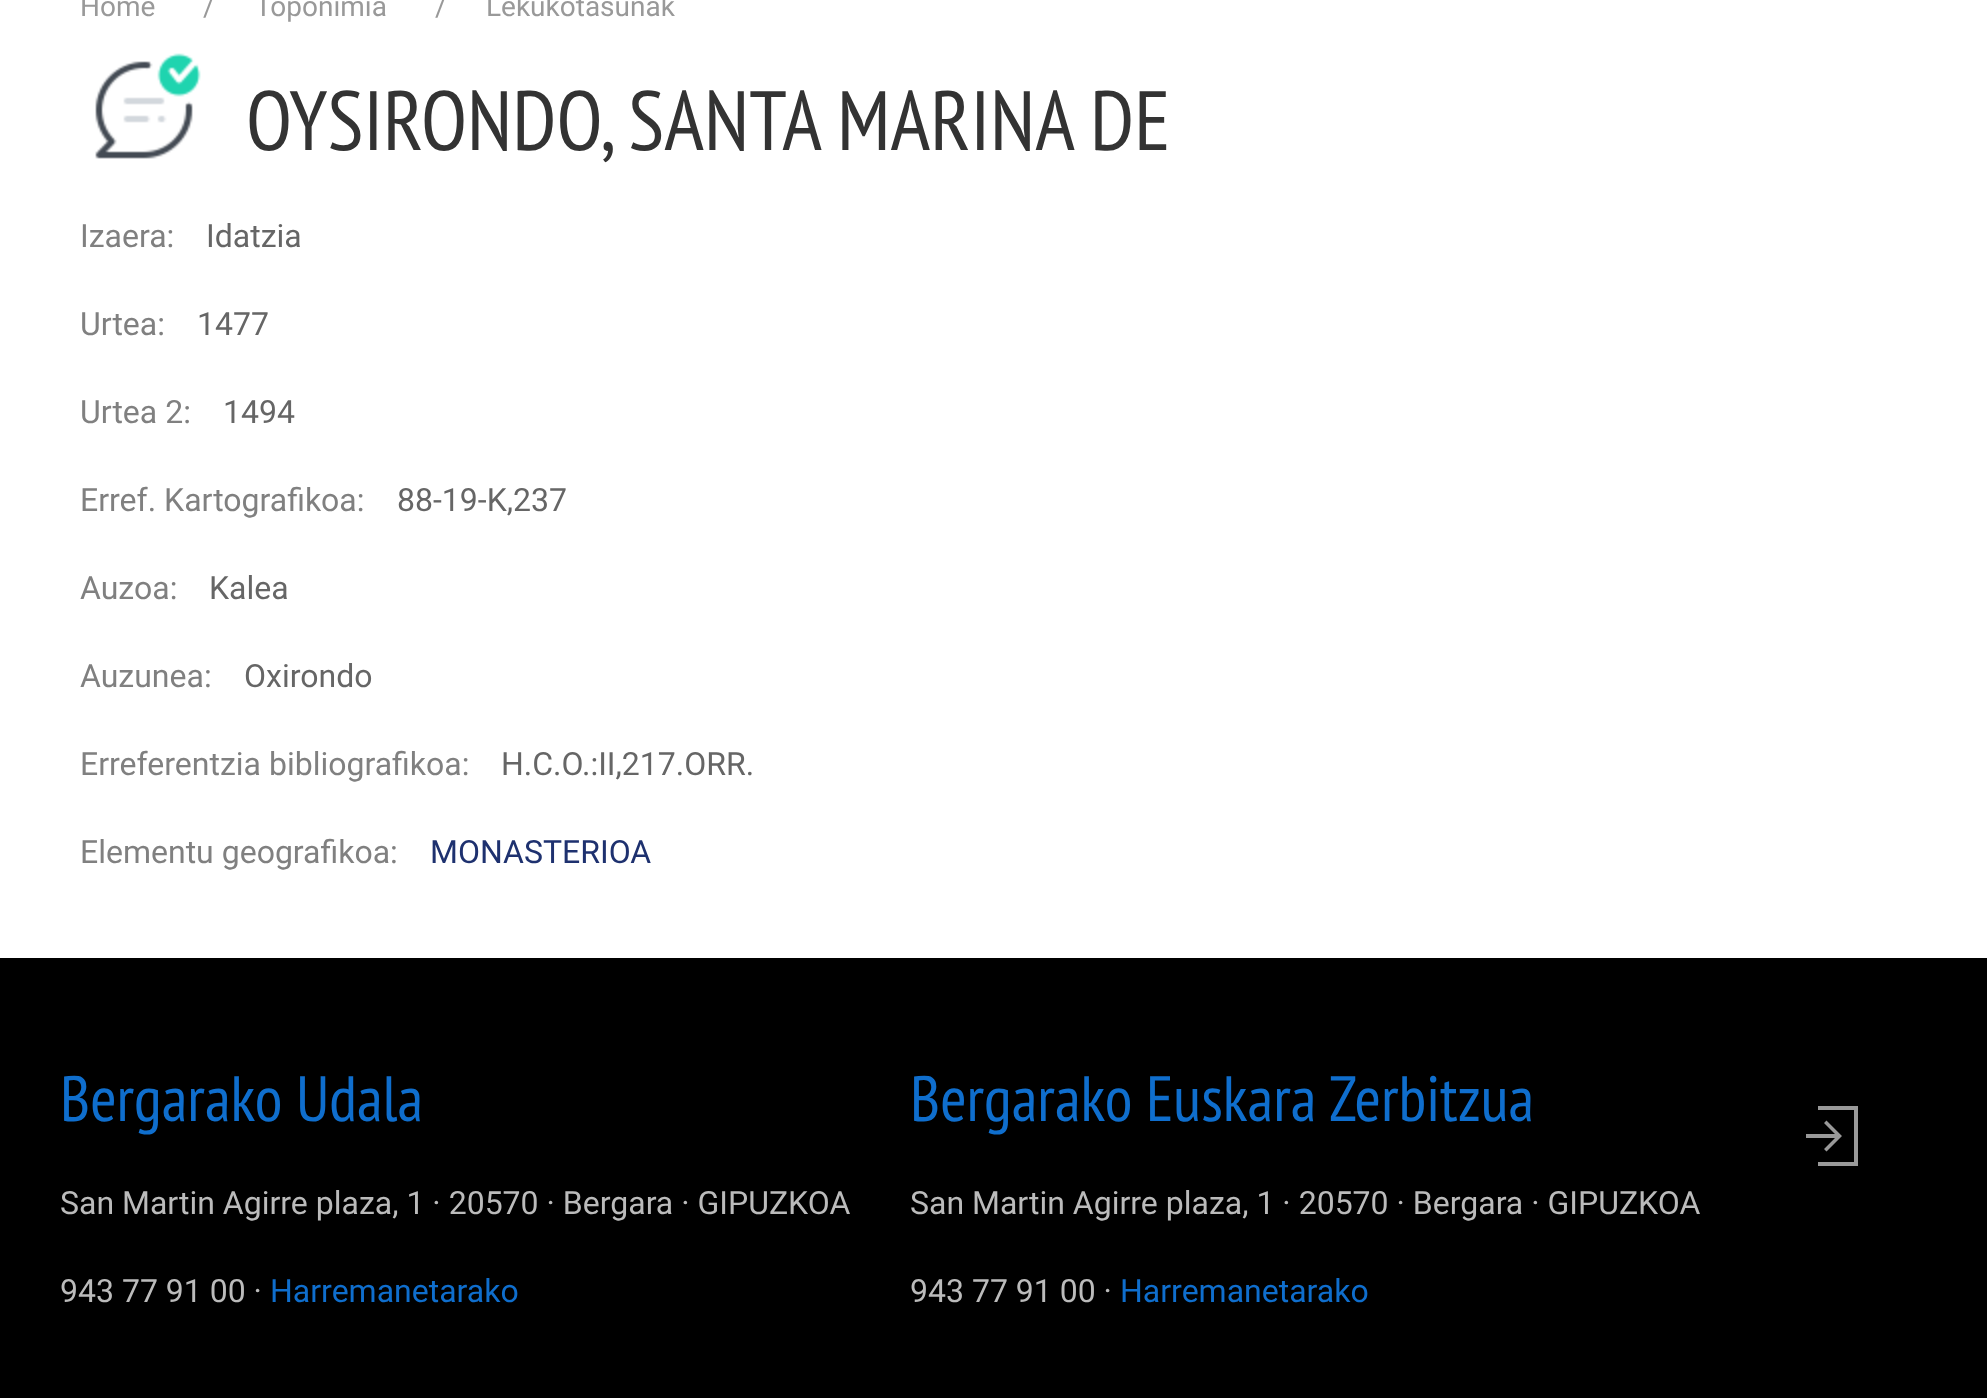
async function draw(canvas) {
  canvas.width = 1987;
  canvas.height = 1398;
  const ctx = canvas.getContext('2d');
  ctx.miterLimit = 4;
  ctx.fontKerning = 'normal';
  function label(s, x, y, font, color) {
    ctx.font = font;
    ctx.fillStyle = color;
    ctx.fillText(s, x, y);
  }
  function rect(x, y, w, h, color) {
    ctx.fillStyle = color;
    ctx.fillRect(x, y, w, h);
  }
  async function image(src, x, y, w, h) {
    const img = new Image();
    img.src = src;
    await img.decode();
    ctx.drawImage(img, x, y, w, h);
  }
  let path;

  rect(0, 0, 1987, 1398, '#fff');
  label('Home', 80, 16, '28px Roboto', '#999');
  label('/', 203, 16, '28px Roboto', '#999');
  label('Toponimia', 255, 16, '28px Roboto', '#999');
  label('/', 435, 16, '28px Roboto', '#999');
  label('Lekukotasunak', 486, 16, '28px Roboto', '#999');
  await image('assets/img1.png', 95, 53, 106, 106);
  label('OYSIRONDO, SANTA MARINA DE', 246, 150, '84px PT Sans Narrow', '#333');
  label('Izaera:', 80, 247, '32px Roboto', '#808080');
  label('Idatzia', 206, 247, '32px Roboto', '#666');
  label('Urtea:', 80, 335, '32px Roboto', '#808080');
  label('1477', 197, 335, '32px Roboto', '#666');
  label('Urtea 2:', 80, 423, '32px Roboto', '#808080');
  label('1494', 223, 423, '32px Roboto', '#666');
  label('Erref. Kartografikoa:', 80, 511, '32px Roboto', '#808080');
  label('88-19-K,237', 397, 511, '32px Roboto', '#666');
  label('Auzoa:', 80, 599, '32px Roboto', '#808080');
  label('Kalea', 209, 599, '32px Roboto', '#666');
  label('Auzunea:', 80, 687, '32px Roboto', '#808080');
  label('Oxirondo', 244, 687, '32px Roboto', '#666');
  label('Erreferentzia bibliografikoa:', 80, 775, '32px Roboto', '#808080');
  label('H.C.O.:II,217.ORR.', 501, 775, '32px Roboto', '#666');
  label('Elementu geografikoa:', 80, 863, '32px Roboto', '#808080');
  label('MONASTERIOA', 430, 863, '32px Roboto', '#1e316f');
  rect(0, 958, 1987, 440, '#000');
  label('Bergarako Udala', 60, 1121, '64px PT Sans Narrow', '#0f6ecd');
  label('San Martin Agirre plaza, 1 · 20570 · Bergara · GIPUZKOA', 60, 1214, '32px Roboto', '#bbb');
  label('943 77 91 00 ·', 60, 1302, '32px Roboto', '#bbb');
  label('Harremanetarako', 270, 1302, '32px Roboto', '#0f6ecd');
  label('Bergarako Euskara Zerbitzua', 910, 1121, '64px PT Sans Narrow', '#0f6ecd');
  label('San Martin Agirre plaza, 1 · 20570 · Bergara · GIPUZKOA', 910, 1214, '32px Roboto', '#bbb');
  label('943 77 91 00 ·', 910, 1302, '32px Roboto', '#bbb');
  label('Harremanetarako', 1120, 1302, '32px Roboto', '#0f6ecd');
  ctx.fillStyle = '#999';
  path = new Path2D('M1818 1106H1858V1166H1818V1162H1854V1110H1818Z');
  ctx.fill(path);
  path = new Path2D('M1826.5 1151.5L1824 1149L1835 1138H1806V1134H1835L1824 1123L1826.5 1120.5L1842 1136Z');
  ctx.fill(path);
}

draw(document.querySelector('canvas'));
